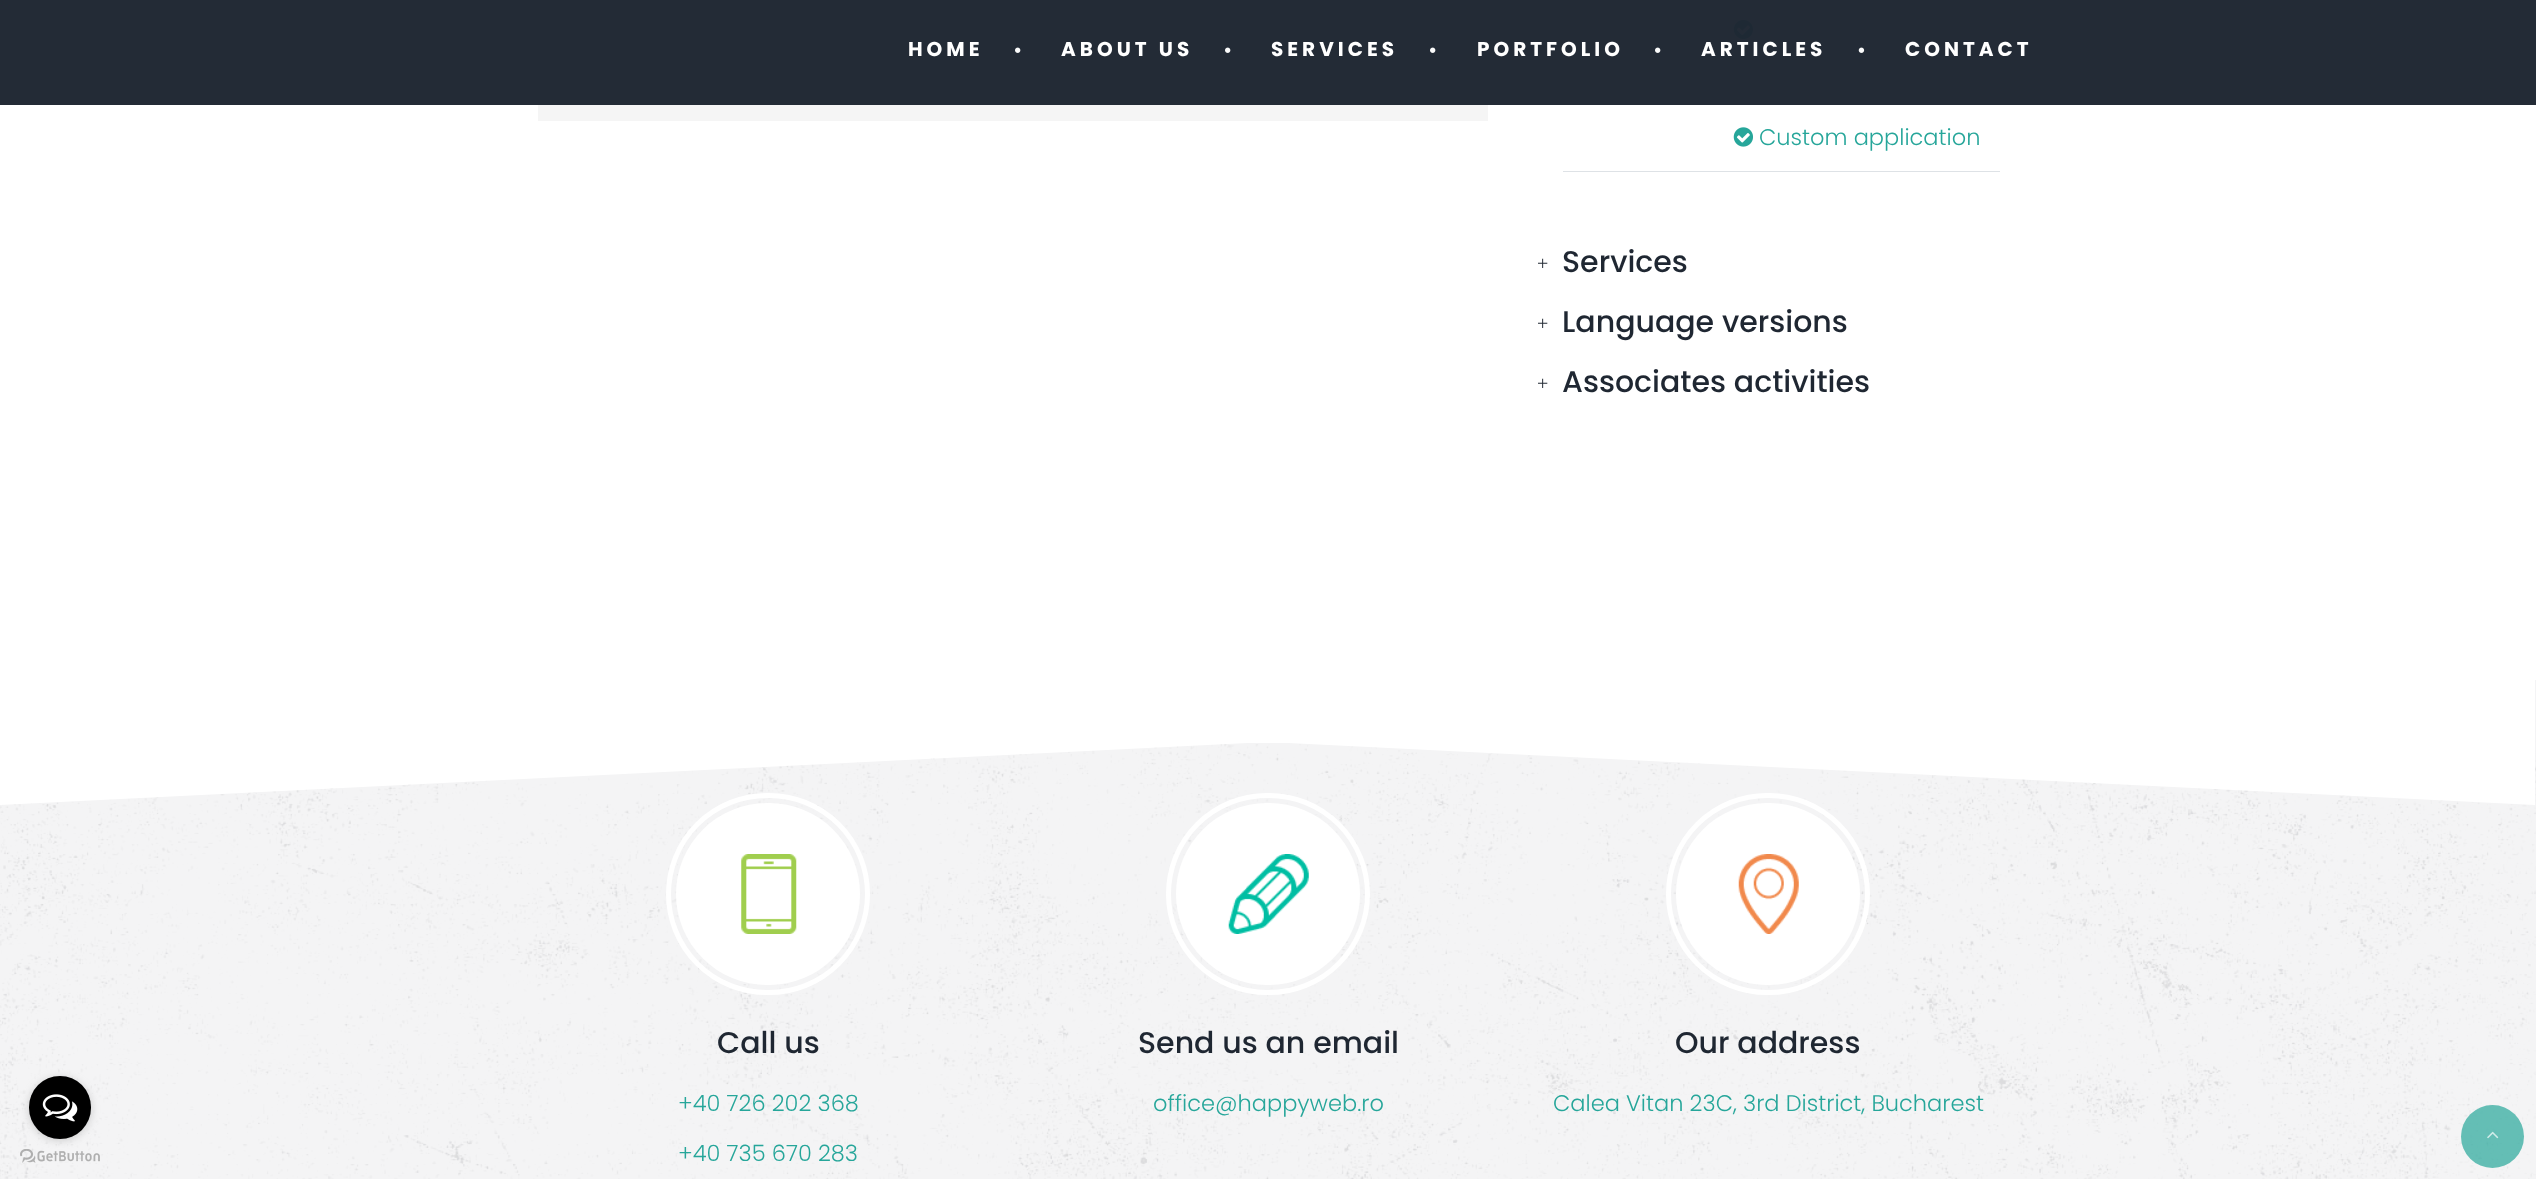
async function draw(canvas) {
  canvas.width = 2536;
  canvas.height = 1179;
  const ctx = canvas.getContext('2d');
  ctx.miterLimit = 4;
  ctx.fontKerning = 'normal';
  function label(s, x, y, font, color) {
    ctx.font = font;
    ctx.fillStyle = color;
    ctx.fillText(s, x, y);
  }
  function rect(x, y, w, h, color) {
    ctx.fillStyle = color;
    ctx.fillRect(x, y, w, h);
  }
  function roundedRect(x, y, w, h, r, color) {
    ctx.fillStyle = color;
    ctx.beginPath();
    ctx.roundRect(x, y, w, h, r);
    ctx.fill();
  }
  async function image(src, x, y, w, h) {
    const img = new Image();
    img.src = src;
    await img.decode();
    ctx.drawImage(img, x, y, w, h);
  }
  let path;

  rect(0, 0, 2536, 1179, '#fff');
  rect(0, 680, 2536, 499, '#f4f4f5');
  await image('assets/img8.png', 0, 744, 2536, 435);
  await image('assets/img2.png', 20, 1149, 80, 14);
  ctx.fillStyle = '#88888866';
  ctx.filter = 'blur(4.5px)';
  ctx.beginPath();
  ctx.roundRect(29, 1078, 62, 62, 31);
  ctx.fill();
  ctx.filter = 'none';
  roundedRect(29, 1076, 62, 63, 31, '#000');
  await image('assets/img1.png', 42, 1094, 36, 28);
  rect(538, 0, 950, 121, '#f5f5f5');
  await image('assets/img6.png', 1733, 19, 20, 21);
  rect(0, 0, 2536, 105, '#1f2732fa');
  ctx.letterSpacing = '4px';
  label('HOME', 908, 56, 'bold 20px Poppins', '#fff');
  await image('assets/img3.png', 1015, 47, 6, 6);
  label('ABOUT US', 1061, 56, 'bold 20px Poppins', '#fff');
  await image('assets/img3.png', 1225, 47, 6, 6);
  label('SERVICES', 1271, 56, 'bold 20px Poppins', '#fff');
  await image('assets/img3.png', 1430, 47, 6, 6);
  label('PORTFOLIO', 1477, 56, 'bold 20px Poppins', '#fff');
  await image('assets/img4.png', 1655, 47, 6, 6);
  label('ARTICLES', 1701, 56, 'bold 20px Poppins', '#fff');
  await image('assets/img5.png', 1858, 47, 7, 6);
  label('CONTACT', 1905, 56, 'bold 20px Poppins', '#fff');
  rect(1563, 171, 437, 1, '#dee2e6');
  await image('assets/img7.png', 1733, 127, 20, 20);
  ctx.letterSpacing = '0px';
  label('Custom application', 1759, 145, '300 22.5px Poppins', '#26a69a');
  label('+', 1537, 270, '20px Liberation Serif', '#1f2732');
  label('Services', 1562, 272, '500 30px Poppins', '#1f2732');
  label('+', 1537, 330, '20px Liberation Serif', '#1f2732');
  label('Language versions', 1562, 332, '500 30px Poppins', '#1f2732');
  label('+', 1537, 390, '20px Liberation Serif', '#1f2732');
  label('Associates activities', 1562, 392, '500 30px Poppins', '#1f2732');
  rect(1, 680, 2534, 63, '#fff');
  path = new Path2D('M2535 680V805L1268 742Z');
  ctx.fill(path);
  path = new Path2D('M0 805V680L1268 742Z');
  ctx.fill(path);
  ctx.beginPath();
  ctx.roundRect(668.5, 795.5, 199, 197, 98.5);
  ctx.strokeStyle = '#fff';
  ctx.lineWidth = 5;
  ctx.stroke();
  roundedRect(676, 803, 184, 182, 91, '#fff');
  await image('assets/img9.png', 741, 854, 56, 80);
  label('Call us', 717, 1053, '500 30px Poppins', '#1f2732');
  label('+40 726 202 368', 678, 1111, '300 22.5px Poppins', '#26a69a');
  label('+40 735 670 283', 678, 1161, '300 22.5px Poppins', '#26a69a');
  ctx.beginPath();
  ctx.roundRect(1168.5, 795.5, 199, 197, 98.5);
  ctx.stroke();
  roundedRect(1176, 803, 184, 182, 91, '#fff');
  await image('assets/img10.png', 1228, 854, 81, 80);
  label('Send us an email', 1138, 1053, '500 30px Poppins', '#1f2732');
  label('office@happyweb.ro', 1153, 1111, '300 22.5px Poppins', '#26a69a');
  ctx.beginPath();
  ctx.roundRect(1668.5, 795.5, 199, 197, 98.5);
  ctx.stroke();
  roundedRect(1676, 803, 184, 182, 91, '#fff');
  await image('assets/img11.png', 1738, 854, 61, 80);
  label('Our address', 1675, 1053, '500 30px Poppins', '#1f2732');
  label('Calea Vitan 23C, 3rd District, Bucharest', 1553, 1111, '300 22.5px Poppins', '#26a69a');
  ctx.fillStyle = '#26a69ab3';
  ctx.beginPath();
  ctx.arc(2492.5, 1136.5, 31.5, 0, 2 * Math.PI);
  ctx.fill();
  await image('assets/img12.png', 2487, 1131, 12, 8);
}

draw(document.querySelector('canvas'));
